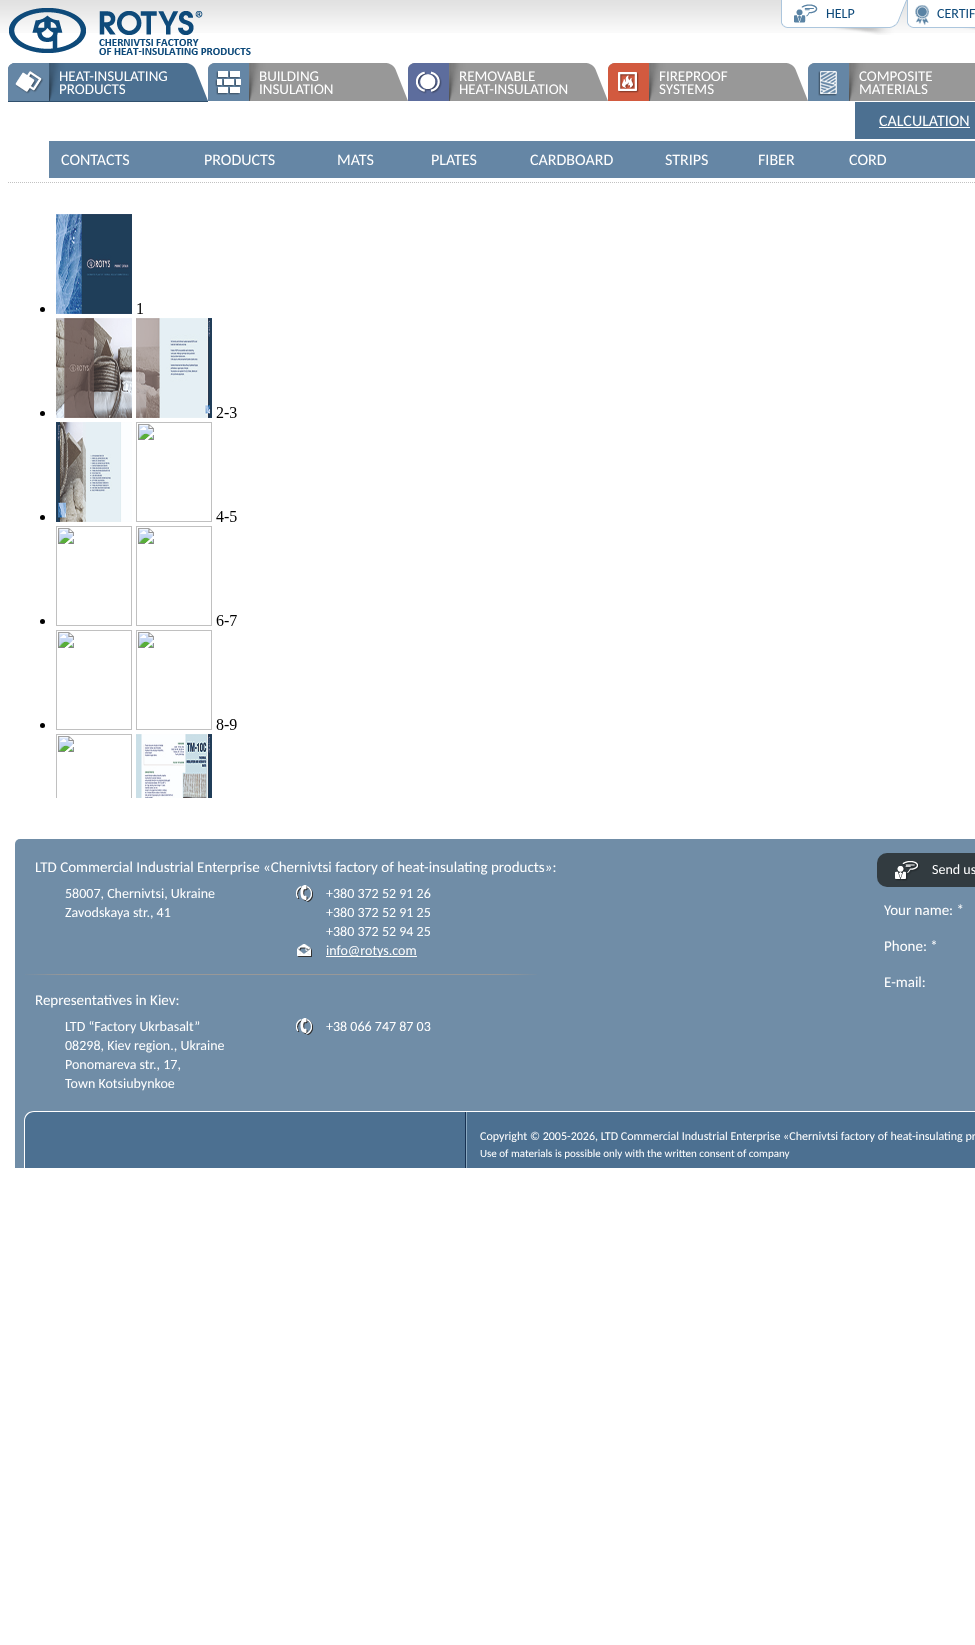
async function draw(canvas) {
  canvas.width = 975;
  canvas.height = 1645;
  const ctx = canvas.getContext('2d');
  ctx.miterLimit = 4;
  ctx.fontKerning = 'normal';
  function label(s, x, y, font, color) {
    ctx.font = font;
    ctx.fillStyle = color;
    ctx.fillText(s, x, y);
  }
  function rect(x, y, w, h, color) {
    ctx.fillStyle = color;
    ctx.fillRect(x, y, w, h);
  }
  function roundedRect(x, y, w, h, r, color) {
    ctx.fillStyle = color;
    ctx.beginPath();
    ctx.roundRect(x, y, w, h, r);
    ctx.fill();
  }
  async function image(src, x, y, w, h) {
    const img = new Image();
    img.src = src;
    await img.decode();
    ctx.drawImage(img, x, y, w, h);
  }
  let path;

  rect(0, 0, 975, 1645, '#fff');
  await image('assets/img1.png', 0, 0, 975, 33);
  await image('assets/img2.png', 9, 8, 242, 47);
  await image('assets/img3.png', 781, 0, 126, 35);
  label('HELP', 826, 18, '14px Carlito', '#0e4a7a');
  await image('assets/img4.png', 907, 0, 68, 30);
  label('CERTIF', 937, 18, '14px Carlito', '#0e4a7a');
  await image('assets/img5.png', 8, 63, 200, 39);
  label('HEAT-INSULATING', 59, 81, '15px Carlito', '#fff');
  label('PRODUCTS', 59, 94, '15px Carlito', '#fff');
  await image('assets/img6.png', 208, 63, 200, 38);
  label('BUILDING', 259, 81, '15px Carlito', '#fff');
  label('INSULATION', 259, 94, '15px Carlito', '#fff');
  await image('assets/img7.png', 408, 63, 200, 38);
  label('REMOVABLE', 459, 81, '15px Carlito', '#fff');
  label('HEAT-INSULATION', 459, 94, '15px Carlito', '#fff');
  await image('assets/img8.png', 608, 63, 200, 38);
  label('FIREPROOF', 659, 81, '15px Carlito', '#fff');
  label('SYSTEMS', 659, 94, '15px Carlito', '#fff');
  await image('assets/img9.png', 808, 63, 167, 38);
  label('COMPOSITE', 859, 81, '15px Carlito', '#fff');
  label('MATERIALS', 859, 94, '15px Carlito', '#fff');
  rect(49, 141, 926, 37, '#6586a5');
  rect(855, 102, 120, 37, '#4c7091');
  label('CALCULATION', 879, 126, '16px Carlito', '#fff');
  rect(879, 127, 91, 1, '#fff');
  label('CONTACTS', 61, 165, '16px Carlito', '#fff');
  label('PRODUCTS', 204, 165, '16px Carlito', '#fff');
  label('MATS', 337, 165, '16px Carlito', '#fff');
  label('PLATES', 431, 165, '16px Carlito', '#fff');
  label('CARDBOARD', 530, 165, '16px Carlito', '#fff');
  label('STRIPS', 665, 165, '16px Carlito', '#fff');
  label('FIBER', 758, 165, '16px Carlito', '#fff');
  label('CORD', 849, 165, '16px Carlito', '#fff');
  path = new Path2D('M8 182.5H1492');
  ctx.strokeStyle = '#c2c2c2';
  ctx.setLineDash([1, 1]);
  ctx.stroke(path);
  await image('assets/img10.png', 40, 214, 197, 584);
  await image('assets/img11.png', 15, 839, 960, 329);
  label('LTD Commercial Industrial Enterprise «Chernivtsi factory of heat-insulating products»:', 35, 872, '15px Carlito', '#fff');
  label('58007, Chernivtsi, Ukraine', 65, 898, '14px Carlito', '#fff');
  label('Zavodskaya str., 41', 65, 917, '14px Carlito', '#fff');
  await image('assets/img12.png', 296, 885, 17, 17);
  label('+380 372 52 91 26', 326, 898, '14px Carlito', '#fff');
  label('+380 372 52 91 25', 326, 917, '14px Carlito', '#fff');
  label('+380 372 52 94 25', 326, 936, '14px Carlito', '#fff');
  await image('assets/img13.png', 297, 944, 15, 13);
  rect(326, 956, 91, 1, '#fff');
  label('info@rotys.com', 326, 955, '14px Carlito', '#fff');
  await image('assets/img14.png', 25, 974, 512, 1);
  label('Representatives in Kiev:', 35, 1005, '15px Carlito', '#fff');
  label('LTD “Factory Ukrbasalt”', 65, 1031, '14px Carlito', '#fff');
  label('08298, Kiev region., Ukraine', 65, 1050, '14px Carlito', '#fff');
  label('Ponomareva str., 17,', 65, 1069, '14px Carlito', '#fff');
  label('Town Kotsiubynkoe', 65, 1088, '14px Carlito', '#fff');
  await image('assets/img12.png', 296, 1018, 17, 17);
  label('+38 066 747 87 03', 326, 1031, '14px Carlito', '#fff');
  roundedRect(877, 853, 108, 34, 10, '#323b40');
  await image('assets/img15.png', 895, 861, 25, 20);
  label('Send us', 932, 874, '14px Carlito', '#fff');
  label('Your name: *', 884, 915, '15px Carlito', '#fff');
  label('Phone: *', 884, 951, '15px Carlito', '#fff');
  label('E-mail:', 884, 987, '15px Carlito', '#fff');
  ctx.fillStyle = '#4c7091';
  path = new Path2D('M34 1111H975C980.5 1111 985 1115.5 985 1121V1168H24V1121C24 1115.5 28.5 1111 34 1111Z');
  ctx.fill(path);
  ctx.fillStyle = '#fff';
  path = new Path2D('M34 1111H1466C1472 1111 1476 1115 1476 1121V1168H24V1121C24 1115 28 1111 34 1111ZM34 1112H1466C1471 1112 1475 1116 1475 1121V1168H25V1121C25 1116 29 1112 34 1112Z');
  ctx.fill(path, 'evenodd');
  rect(465, 1112, 1, 56, '#173152');
  rect(466, 1112, 1, 56, '#8ba9c0');
  label('Copyright © 2005-2026, LTD Commercial Industrial Enterprise «Chernivtsi factory of heat-insulating pr', 480, 1140, '12px Carlito', '#fff');
  label('Use of materials is possible only with the written consent of company', 480, 1157, '11px Carlito', '#fff');
}

draw(document.querySelector('canvas'));
